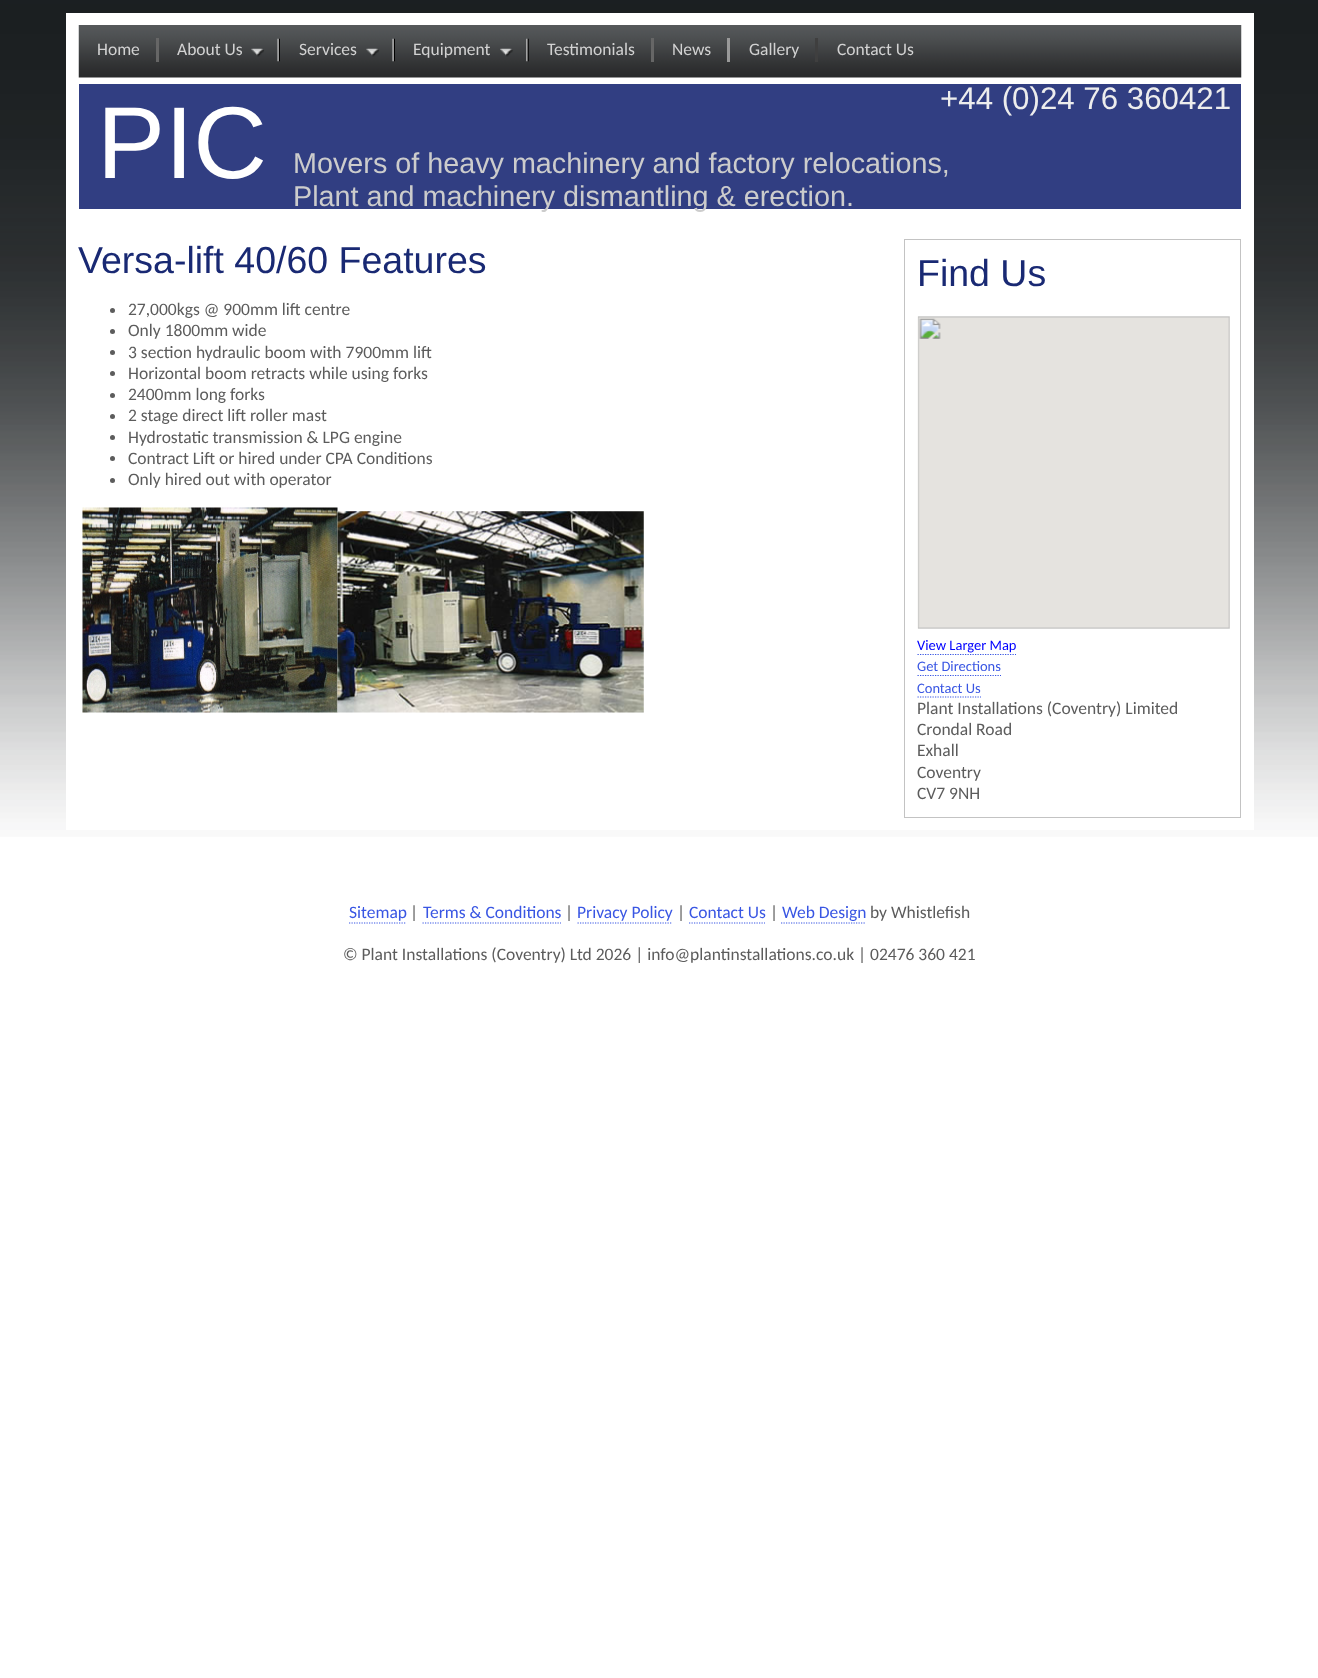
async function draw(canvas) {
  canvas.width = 1318;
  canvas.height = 1678;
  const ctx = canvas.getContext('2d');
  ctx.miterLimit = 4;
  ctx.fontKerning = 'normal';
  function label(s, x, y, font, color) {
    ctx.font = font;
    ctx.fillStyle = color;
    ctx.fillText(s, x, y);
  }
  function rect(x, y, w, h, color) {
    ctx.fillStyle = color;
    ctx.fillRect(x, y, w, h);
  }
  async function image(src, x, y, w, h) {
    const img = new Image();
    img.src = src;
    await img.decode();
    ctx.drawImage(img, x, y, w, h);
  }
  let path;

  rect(0, 0, 1318, 1678, '#fff');
  await image('assets/img1.png', 0, 0, 1318, 837);
  rect(66, 13, 1188, 817, '#fff');
  await image('assets/img2.png', 78, 25, 1164, 53);
  rect(156, 38, 3, 24, '#666');
  label('Home', 97, 55, '17.5px Carlito', '#d2d2d2');
  await image('assets/img3.png', 251, 38, 29, 24);
  label('About Us', 177, 55, '17.5px Carlito', '#d2d2d2');
  await image('assets/img4.png', 366, 38, 29, 24);
  label('Services', 299, 55, '17.5px Carlito', '#d2d2d2');
  await image('assets/img5.png', 500, 38, 29, 24);
  label('Equipment', 413, 55, '17.5px Carlito', '#d2d2d2');
  rect(651, 38, 3, 24, '#666');
  label('Testimonials', 547, 55, '17.5px Carlito', '#d2d2d2');
  rect(727, 38, 3, 24, '#999');
  label('News', 672, 55, '17.5px Carlito', '#d2d2d2');
  rect(815, 38, 3, 24, '#3f3f3f');
  label('Gallery', 749, 55, '17.5px Carlito', '#d2d2d2');
  label('Contact Us', 837, 55, '17.5px Carlito', '#d2d2d2');
  rect(79, 84, 1162, 125, '#313e82');
  label('+44 (0)24 76 360421', 940, 109, '31.25px Liberation Sans', '#ededed');
  label('PIC', 97, 178, '102px Liberation Sans', '#fff');
  label('Movers of heavy machinery and factory relocations,', 293, 173, '28.75px Liberation Sans', '#ccc');
  label('Plant and machinery dismantling & erection.', 293, 206, '28.75px Liberation Sans', '#ccc');
  label('Versa-lift 40/60 Features', 78, 273, '37.5px Liberation Sans', '#192973');
  ctx.fillStyle = '#5c5c5c';
  ctx.beginPath();
  ctx.arc(112.5, 310.5, 2.5, 0, 2 * Math.PI);
  ctx.fill();
  label('27,000kgs @ 900mm lift centre', 128, 315, '17.5px Carlito', '#5c5c5c');
  ctx.beginPath();
  ctx.arc(112.5, 331.5, 2.5, 0, 2 * Math.PI);
  ctx.fill();
  label('Only 1800mm wide', 128, 336, '17.5px Carlito', '#5c5c5c');
  ctx.beginPath();
  ctx.arc(112.5, 352.5, 2.5, 0, 2 * Math.PI);
  ctx.fill();
  label('3 section hydraulic boom with 7900mm lift', 128, 358, '17.5px Carlito', '#5c5c5c');
  ctx.beginPath();
  ctx.arc(112.5, 373.5, 2.5, 0, 2 * Math.PI);
  ctx.fill();
  label('Horizontal boom retracts while using forks', 128, 379, '17.5px Carlito', '#5c5c5c');
  ctx.beginPath();
  ctx.arc(112.5, 395.5, 2.5, 0, 2 * Math.PI);
  ctx.fill();
  label('2400mm long forks', 128, 400, '17.5px Carlito', '#5c5c5c');
  ctx.beginPath();
  ctx.arc(112.5, 416.5, 2.5, 0, 2 * Math.PI);
  ctx.fill();
  label('2 stage direct lift roller mast', 128, 421, '17.5px Carlito', '#5c5c5c');
  ctx.beginPath();
  ctx.arc(112.5, 437.5, 2.5, 0, 2 * Math.PI);
  ctx.fill();
  label('Hydrostatic transmission & LPG engine', 128, 443, '17.5px Carlito', '#5c5c5c');
  ctx.beginPath();
  ctx.arc(112.5, 458.5, 2.5, 0, 2 * Math.PI);
  ctx.fill();
  label('Contract Lift or hired under CPA Conditions', 128, 464, '17.5px Carlito', '#5c5c5c');
  ctx.beginPath();
  ctx.arc(112.5, 480.5, 2.5, 0, 2 * Math.PI);
  ctx.fill();
  label('Only hired out with operator', 128, 485, '17.5px Carlito', '#5c5c5c');
  await image('assets/img6.png', 82, 507, 256, 206);
  await image('assets/img7.png', 337, 511, 307, 202);
  ctx.strokeStyle = '#c3c3c3';
  ctx.strokeRect(904.5, 239.5, 336, 578);
  label('Find Us', 917, 286, '37.5px Liberation Sans', '#192973');
  await image('assets/img8.png', 917, 316, 313, 313);
  label('View Larger Map', 917, 650, '14.5px Carlito', '#00f');
  path = new Path2D('M917.5 654.5H1016');
  ctx.strokeStyle = '#3956e3';
  ctx.lineWidth = 1.2;
  ctx.setLineDash([1.25, 1.25]);
  ctx.stroke(path);
  label('Get Directions', 917, 671, '14.5px Carlito', '#3956e3');
  path = new Path2D('M917.5 675.5H1001');
  ctx.stroke(path);
  label('Contact Us', 917, 693, '14.5px Carlito', '#3956e3');
  path = new Path2D('M917.5 697H981');
  ctx.stroke(path);
  label('Plant Installations (Coventry) Limited', 917, 714, '17.5px Carlito', '#5c5c5c');
  label('Crondal Road', 917, 735, '17.5px Carlito', '#5c5c5c');
  label('Exhall', 917, 756, '17.5px Carlito', '#5c5c5c');
  label('Coventry', 917, 778, '17.5px Carlito', '#5c5c5c');
  label('CV7 9NH', 917, 799, '17.5px Carlito', '#5c5c5c');
  label('Sitemap', 349, 918, '17.5px Carlito', '#3956e3');
  path = new Path2D('M349 923H406');
  ctx.stroke(path);
  label('|', 410, 918, '17.5px Carlito', '#5c5c5c');
  label('Terms & Conditions', 423, 918, '17.5px Carlito', '#3956e3');
  path = new Path2D('M422.5 923H561');
  ctx.stroke(path);
  label('|', 565, 918, '17.5px Carlito', '#5c5c5c');
  label('Privacy Policy', 577, 918, '17.5px Carlito', '#3956e3');
  path = new Path2D('M577.5 923H672.5');
  ctx.stroke(path);
  label('|', 677, 918, '17.5px Carlito', '#5c5c5c');
  label('Contact Us', 689, 918, '17.5px Carlito', '#3956e3');
  path = new Path2D('M689 923H765');
  ctx.stroke(path);
  label('|', 770, 918, '17.5px Carlito', '#5c5c5c');
  label('Web Design', 782, 918, '17.5px Carlito', '#3956e3');
  path = new Path2D('M781 923H866');
  ctx.stroke(path);
  label('by Whistlefish', 870, 918, '17.5px Carlito', '#5c5c5c');
  label('© Plant Installations (Coventry) Ltd 2026 | info@plantinstallations.co.uk | 02476 360 421', 343, 960, '17.5px Carlito', '#5c5c5c');
}

draw(document.querySelector('canvas'));
